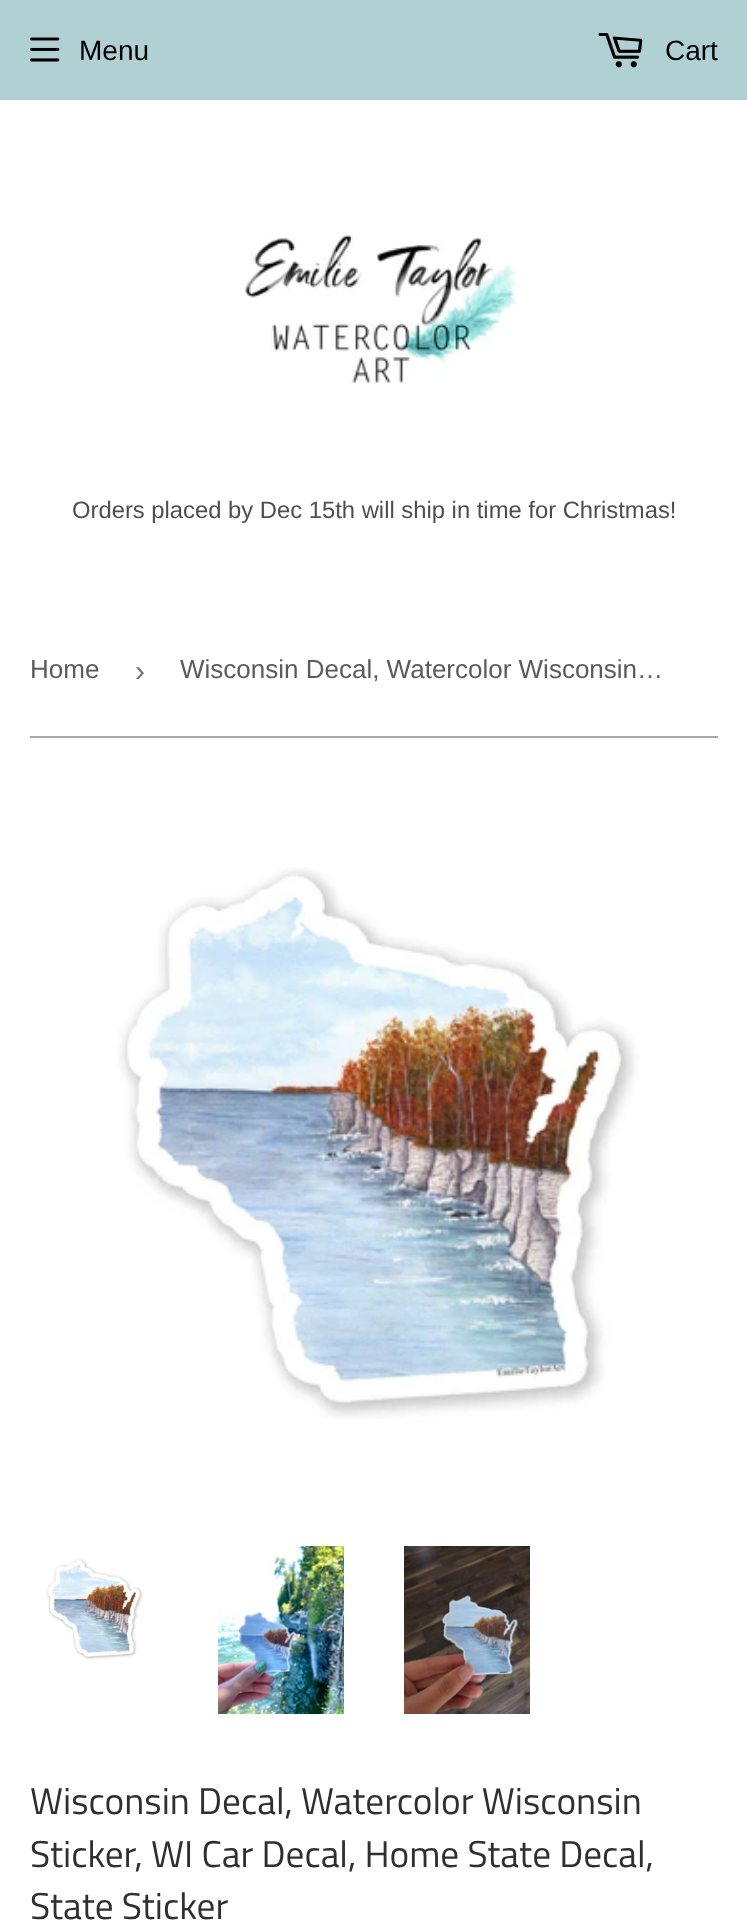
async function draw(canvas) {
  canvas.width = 747;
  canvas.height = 1922;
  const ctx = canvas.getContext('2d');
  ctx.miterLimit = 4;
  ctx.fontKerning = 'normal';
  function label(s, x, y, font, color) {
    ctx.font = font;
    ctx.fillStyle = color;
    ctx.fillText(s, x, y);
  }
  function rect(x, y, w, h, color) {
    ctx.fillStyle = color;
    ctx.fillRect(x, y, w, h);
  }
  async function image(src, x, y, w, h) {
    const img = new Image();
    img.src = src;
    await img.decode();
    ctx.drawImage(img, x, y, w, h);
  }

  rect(0, 0, 747, 1922, '#fff');
  rect(0, 0, 747, 100, '#b0d0d4');
  await image('assets/img1.png', 30, 37, 30, 25);
  label('Menu', 79, 60, '28px Liberation Sans', '#000');
  await image('assets/img2.png', 598, 33, 45, 35);
  label('Cart', 665, 60, '28px Liberation Sans', '#000');
  await image('assets/img3.png', 245, 234, 273, 150);
  label('Orders placed by Dec 15th will ship in time for Christmas!', 72, 518, '23.8px Liberation Sans', '#4e4e4e');
  rect(30, 736, 688, 2, '#a9a6a6');
  label('Home', 30, 678, '26px Liberation Sans', '#5b5b5b');
  label('›', 135, 681, '30px Liberation Sans', '#767676');
  label('Wisconsin Decal, Watercolor Wisconsin…', 180, 678, '26px Liberation Sans', '#5b5b5b');
  await image('assets/img4.png', 117, 867, 524, 552);
  await image('assets/img5.png', 46, 1559, 97, 101);
  await image('assets/img6.png', 218, 1546, 126, 168);
  await image('assets/img7.png', 404, 1546, 126, 168);
  label('Wisconsin Decal, Watercolor Wisconsin', 30, 1814, '37.3px Titillium Web', '#2f2f2f');
  label('Sticker, WI Car Decal, Home State Decal,', 30, 1867, '37.3px Titillium Web', '#2f2f2f');
  label('State Sticker', 30, 1919, '37.3px Titillium Web', '#2f2f2f');
}

draw(document.querySelector('canvas'));
